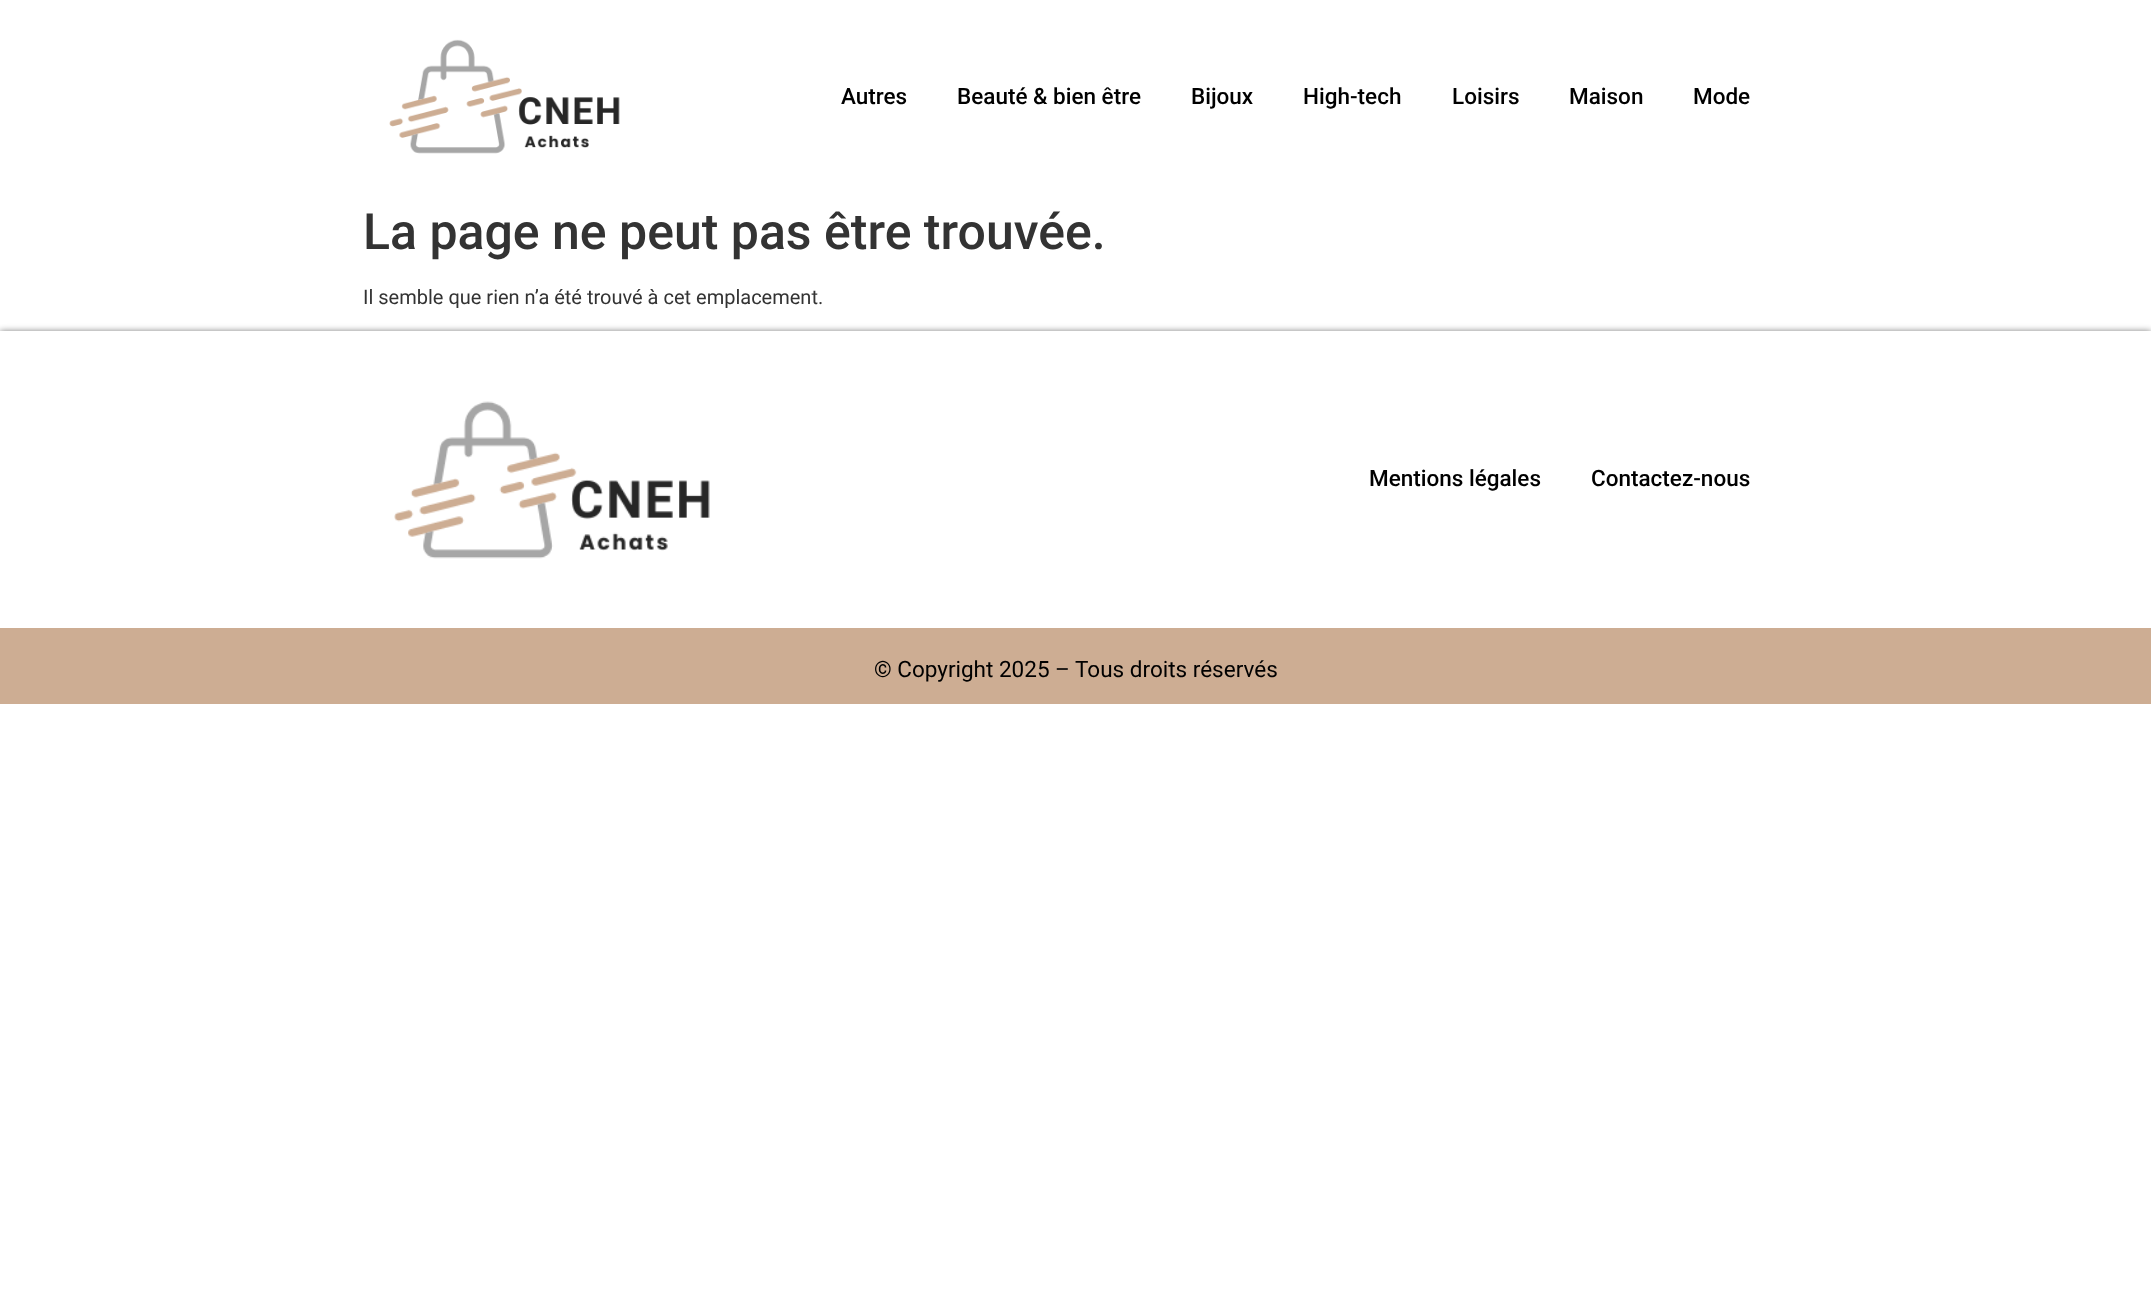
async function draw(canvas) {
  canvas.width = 2151;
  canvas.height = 1303;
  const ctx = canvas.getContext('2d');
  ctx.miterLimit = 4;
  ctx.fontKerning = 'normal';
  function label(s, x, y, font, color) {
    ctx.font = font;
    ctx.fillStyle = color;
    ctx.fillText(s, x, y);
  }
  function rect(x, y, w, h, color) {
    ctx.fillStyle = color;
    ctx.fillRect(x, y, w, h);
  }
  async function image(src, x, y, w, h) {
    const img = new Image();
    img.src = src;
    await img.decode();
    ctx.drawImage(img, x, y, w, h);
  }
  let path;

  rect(0, 0, 2151, 1303, '#fff');
  await image('assets/img1.png', 389, 39, 231, 115);
  label('Autres', 841, 104, '500 22.5px Roboto', '#000');
  label('Beauté & bien être', 957, 104, '500 22.5px Roboto', '#000');
  label('Bijoux', 1191, 104, '500 22.5px Roboto', '#000');
  label('High-tech', 1303, 104, '500 22.5px Roboto', '#000');
  label('Loisirs', 1452, 104, '500 22.5px Roboto', '#000');
  label('Maison', 1569, 104, '500 22.5px Roboto', '#000');
  label('Mode', 1693, 104, '500 22.5px Roboto', '#000');
  label('La page ne peut pas être trouvée.', 363, 249, '500 50px Roboto', '#333');
  label('Il semble que rien n’a été trouvé à cet emplacement.', 363, 304, '20px Roboto', '#333');
  ctx.save();
  path = new Path2D('M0 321H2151V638H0ZM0 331H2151V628H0Z');
  ctx.clip(path, 'evenodd');
  ctx.fillStyle = '#00000080';
  ctx.filter = 'blur(3px)';
  ctx.beginPath();
  ctx.rect(0, 331, 2151, 297);
  ctx.fill();
  ctx.filter = 'none';
  ctx.restore();
  await image('assets/img2.png', 394, 401, 316, 158);
  label('Mentions légales', 1369, 486, '500 22.5px Roboto', '#000');
  label('Contactez-nous', 1591, 486, '500 22.5px Roboto', '#000');
  rect(0, 628, 2151, 76, '#cdad93');
  label('© Copyright 2025 – Tous droits réservés', 874, 677, '22.5px Roboto', '#000');
}

draw(document.querySelector('canvas'));
